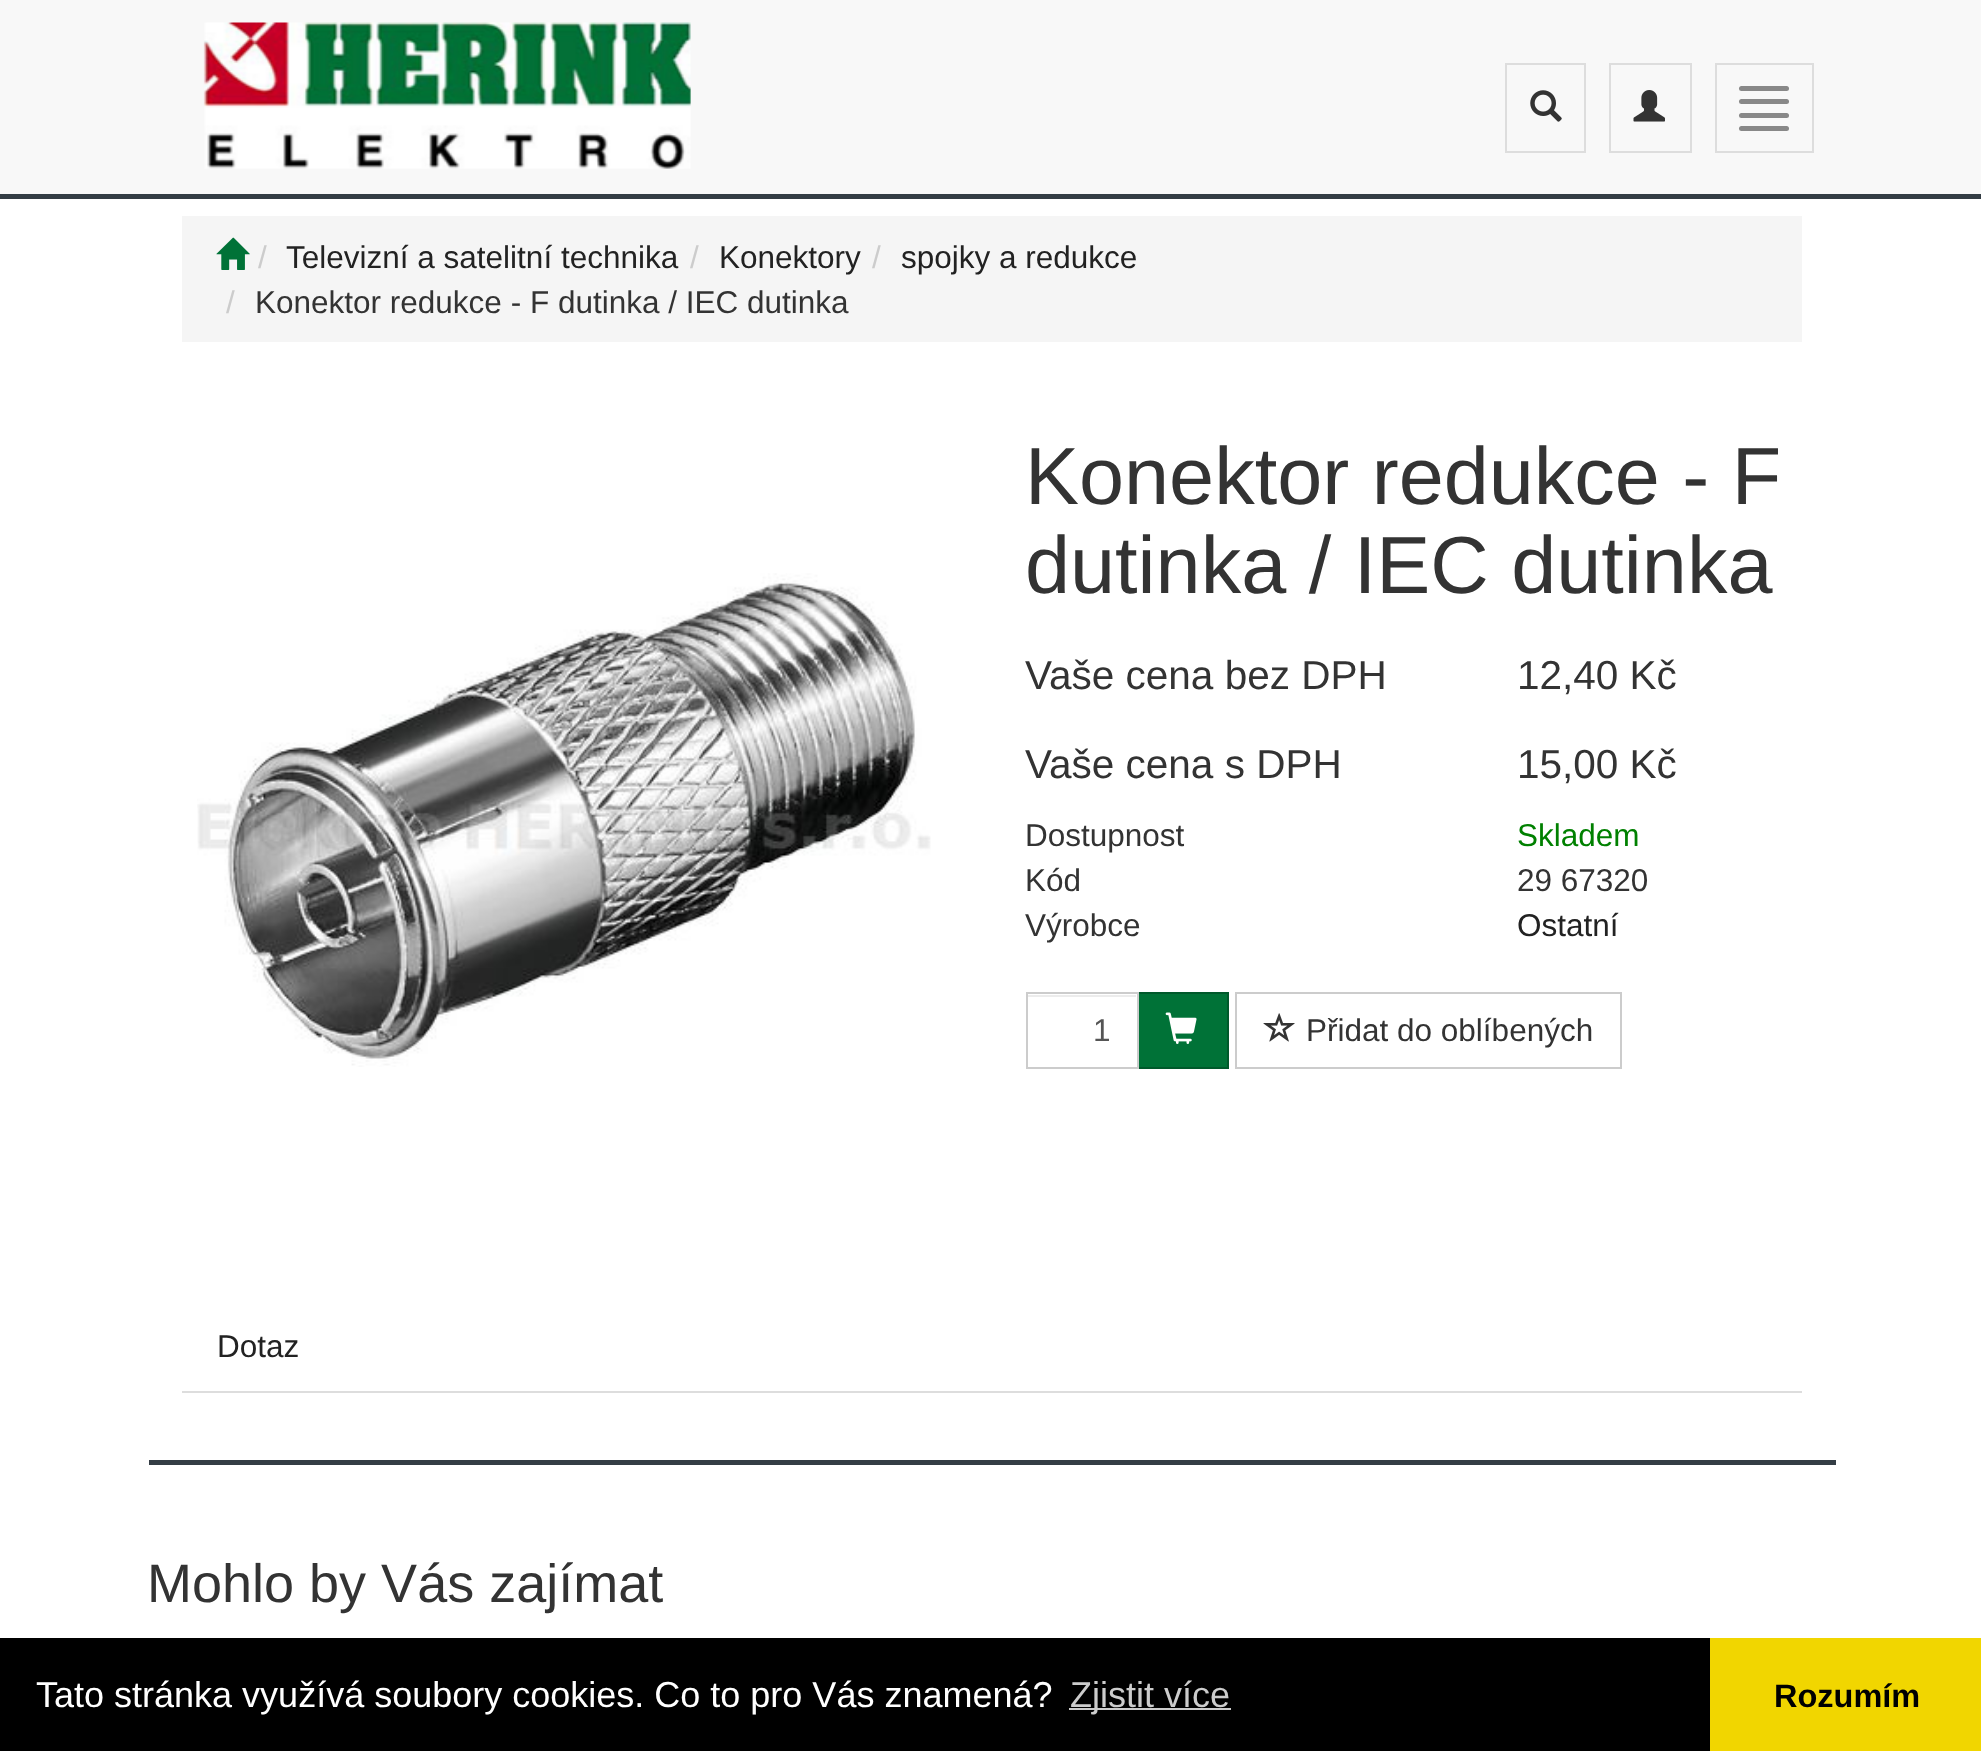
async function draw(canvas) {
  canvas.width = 1981;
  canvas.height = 1751;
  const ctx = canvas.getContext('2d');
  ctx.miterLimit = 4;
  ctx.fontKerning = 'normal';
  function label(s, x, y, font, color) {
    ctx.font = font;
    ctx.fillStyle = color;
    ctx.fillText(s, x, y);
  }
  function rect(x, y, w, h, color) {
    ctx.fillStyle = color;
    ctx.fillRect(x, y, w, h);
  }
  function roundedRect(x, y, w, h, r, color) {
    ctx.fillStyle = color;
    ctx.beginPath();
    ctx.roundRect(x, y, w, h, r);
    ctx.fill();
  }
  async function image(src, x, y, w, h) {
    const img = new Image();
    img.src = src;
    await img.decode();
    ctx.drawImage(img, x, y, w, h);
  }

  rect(0, 0, 1981, 1751, '#fff');
  rect(0, 0, 1981, 194, '#f8f8f8');
  rect(0, 194, 1981, 5, '#343d45');
  await image('assets/img1.png', 203, 22, 488, 147);
  ctx.strokeStyle = '#ddd';
  ctx.lineWidth = 2;
  ctx.strokeRect(1506, 64, 79, 88);
  await image('assets/img2.png', 1530, 90, 32, 32);
  ctx.strokeRect(1610, 64, 81, 88);
  await image('assets/img3.png', 1633, 90, 32, 32);
  ctx.strokeRect(1716, 64, 97, 88);
  roundedRect(1739, 86, 50, 5, 2.5, '#888');
  roundedRect(1739, 99, 50, 5, 2.5, '#888');
  roundedRect(1739, 113, 50, 5, 2.5, '#888');
  roundedRect(1739, 126, 50, 5, 2.5, '#888');
  rect(182, 216, 1620, 126, '#f5f5f5');
  await image('assets/img4.png', 216, 237, 34, 33);
  label('/', 258, 268, '31.5px Liberation Sans', '#ccc');
  label('Televizní a satelitní technika', 286, 268, '31.5px Liberation Sans', '#222');
  label('/', 690, 268, '31.5px Liberation Sans', '#ccc');
  label('Konektory', 719, 268, '31.5px Liberation Sans', '#222');
  label('/', 872, 268, '31.5px Liberation Sans', '#ccc');
  label('spojky a redukce', 901, 268, '31.5px Liberation Sans', '#222');
  label('/', 226, 313, '31.5px Liberation Sans', '#ccc');
  label('Konektor redukce - F dutinka / IEC dutinka', 255, 313, '31.5px Liberation Sans', '#333');
  await image('assets/img5.png', 197, 573, 734, 494);
  label('Konektor redukce - F', 1025, 504, '81px Liberation Sans', '#333');
  label('dutinka / IEC dutinka', 1025, 593, '81px Liberation Sans', '#333');
  label('Vaše cena bez DPH', 1025, 689, '40.5px Liberation Sans', '#333');
  label('12,40 Kč', 1517, 689, '40.5px Liberation Sans', '#333');
  label('Vaše cena s DPH', 1025, 778, '40.5px Liberation Sans', '#333');
  label('15,00 Kč', 1517, 778, '40.5px Liberation Sans', '#333');
  label('Dostupnost', 1025, 846, '31.5px Liberation Sans', '#333');
  label('Skladem', 1517, 846, '31.5px Liberation Sans', '#008000');
  label('Kód', 1025, 891, '31.5px Liberation Sans', '#333');
  label('29 67320', 1517, 891, '31.5px Liberation Sans', '#333');
  label('Výrobce', 1025, 936, '31.5px Liberation Sans', '#333');
  label('Ostatní', 1517, 936, '31.5px Liberation Sans', '#222');
  rect(1139, 994, 88, 73, '#007237');
  ctx.strokeStyle = '#00592b';
  ctx.strokeRect(1137, 993, 91, 75);
  rect(1136, 994, 1, 73, '#fff');
  rect(1028, 995, 108, 2, '#ececec');
  ctx.strokeStyle = '#ccc';
  ctx.strokeRect(1027, 993, 111, 75);
  label('1', 1093, 1041, '31.5px Liberation Sans', '#555');
  await image('assets/img6.png', 1165, 1012, 32, 32);
  ctx.strokeRect(1236, 993, 385, 75);
  await image('assets/img7.png', 1263, 1013, 32, 29);
  label('Přidat do oblíbených', 1306, 1041, '31.5px Liberation Sans', '#333');
  rect(182, 1391, 1620, 2, '#ddd');
  label('Dotaz', 217, 1357, '31.5px Liberation Sans', '#222');
  rect(149, 1460, 1687, 5, '#343d45');
  label('Mohlo by Vás zajímat', 147, 1602, '54px Liberation Sans', '#333');
  rect(0, 1638, 1710, 113, '#000');
  label('Tato stránka využívá soubory cookies. Co to pro Vás znamená?', 36, 1707, '36px Liberation Sans', '#fff');
  rect(1069, 1708, 162, 2, '#ccc');
  label('Zjistit více', 1070, 1707, '36px Liberation Sans', '#ccc');
  rect(1710, 1638, 271, 113, '#f1d600');
  label('Rozumím', 1774, 1707, 'bold 32.5px Liberation Sans', '#000');
}

draw(document.querySelector('canvas'));
